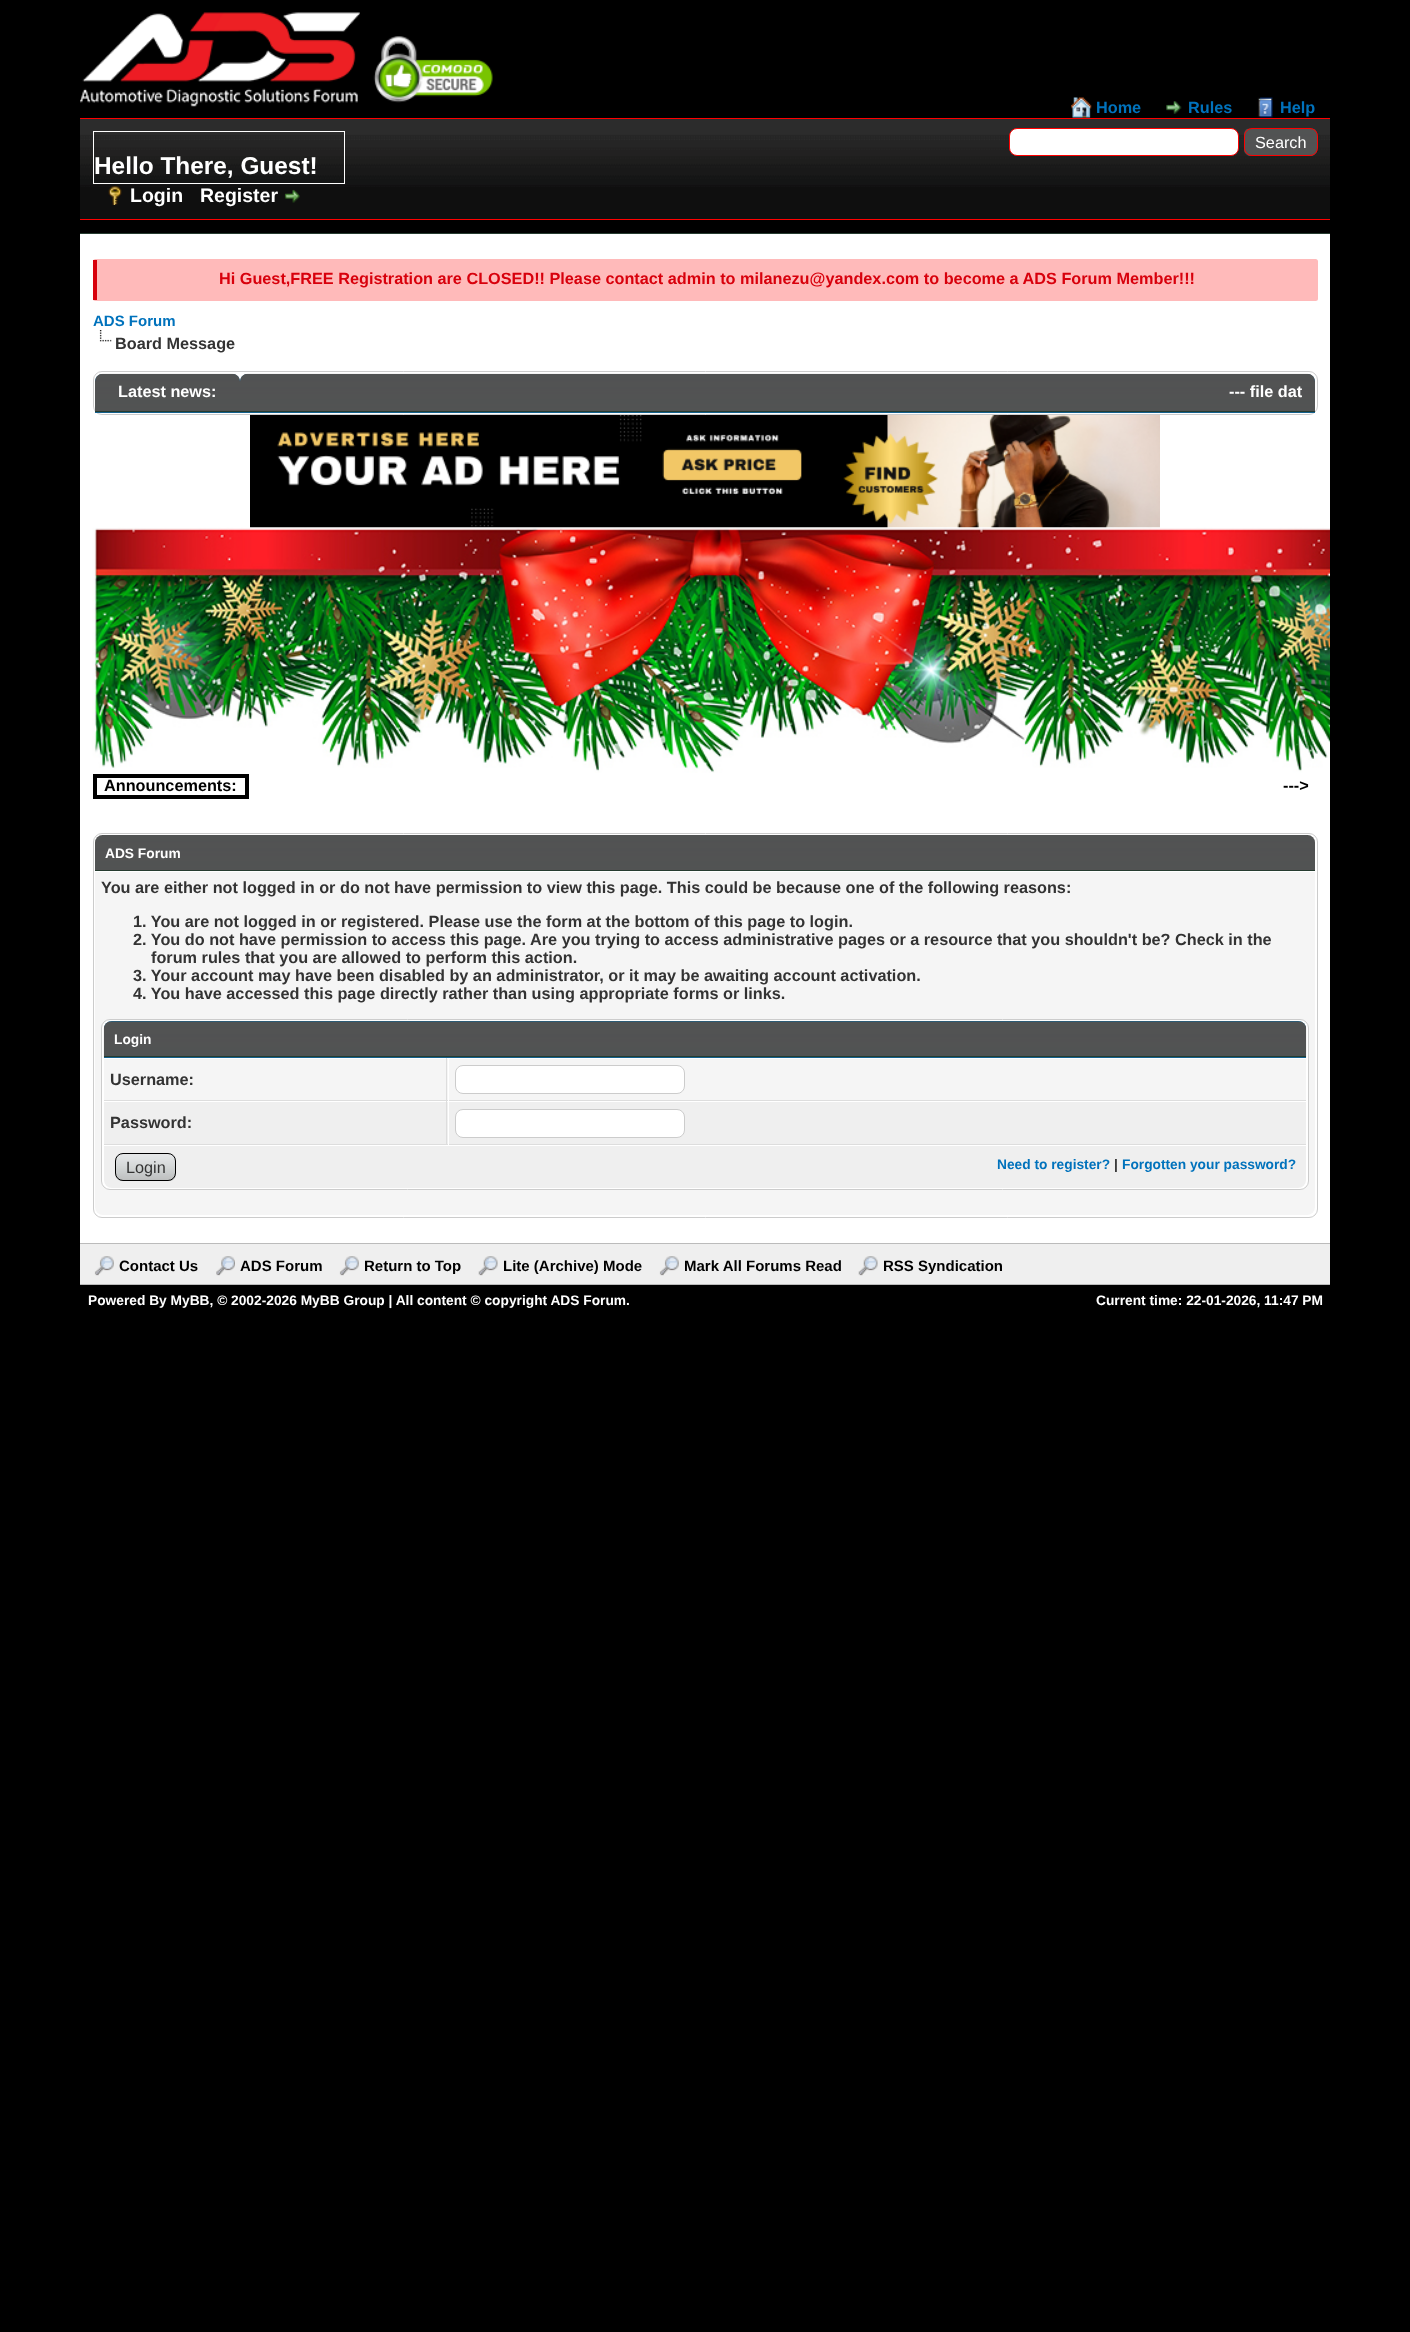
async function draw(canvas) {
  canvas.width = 1410;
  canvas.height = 2332;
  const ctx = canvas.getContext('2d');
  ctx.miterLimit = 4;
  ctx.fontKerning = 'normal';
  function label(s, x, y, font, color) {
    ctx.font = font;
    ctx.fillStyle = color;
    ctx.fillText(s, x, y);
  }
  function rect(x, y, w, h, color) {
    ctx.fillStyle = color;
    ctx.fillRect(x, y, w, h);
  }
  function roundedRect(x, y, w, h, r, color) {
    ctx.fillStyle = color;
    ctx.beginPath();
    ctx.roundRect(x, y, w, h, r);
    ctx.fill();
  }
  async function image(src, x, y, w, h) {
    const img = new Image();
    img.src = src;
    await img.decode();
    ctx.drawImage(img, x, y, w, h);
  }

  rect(0, 0, 1410, 2332, '#000');
  rect(80, 233, 1250, 1, '#263c30');
  await image('assets/img1.png', 80, 12, 280, 95);
  await image('assets/img2.png', 373, 36, 120, 67);
  await image('assets/img3.png', 1071, 97, 21, 21);
  label('Home', 1096, 113, 'bold 16.25px Liberation Sans', '#0072bc');
  await image('assets/img4.png', 1166, 101, 16, 13);
  label('Rules', 1188, 113, 'bold 16.25px Liberation Sans', '#0072bc');
  await image('assets/img5.png', 1257, 97, 16, 21);
  label('Help', 1280, 113, 'bold 16.25px Liberation Sans', '#0072bc');
  rect(80, 187, 1250, 32, '#0f0f0f');
  await image('assets/img6.png', 80, 119, 1250, 68);
  rect(80, 118, 1250, 1, '#f00');
  rect(80, 219, 1250, 1, '#f00');
  ctx.fillStyle = '#fff';
  ctx.beginPath();
  ctx.roundRect(1009.5, 128.5, 229, 27, 7.5);
  ctx.fill();
  ctx.strokeStyle = '#f00';
  ctx.stroke();
  await image('assets/img7.png', 1244, 128, 74, 28);
  ctx.beginPath();
  ctx.roundRect(1244.5, 128.5, 73, 27, 7.5);
  ctx.stroke();
  label('Search', 1255, 148, '16.25px Liberation Sans', '#fff');
  ctx.strokeStyle = '#fff';
  ctx.strokeRect(93.5, 131.5, 251, 52);
  label('Hello There, Guest!', 94, 174, 'bold 24.4px Liberation Sans', '#fff');
  await image('assets/img8.png', 108, 186, 14, 19);
  label('Login', 130, 202, 'bold 19.5px Liberation Sans', '#fff');
  label('Register', 200, 202, 'bold 19.5px Liberation Sans', '#fff');
  await image('assets/img9.png', 284, 189, 16, 14);
  rect(80, 234, 1250, 1009, '#fff');
  roundedRect(93, 259, 1225, 42, 2.5, '#ffbaba');
  rect(93, 260, 4, 40, '#d8000c');
  label('Hi Guest,FREE Registration are CLOSED!! Please contact admin to milanezu@yandex.com to become a ADS Forum Member!!!', 219, 284, 'bold 16.25px Liberation Sans', '#d8000c');
  label('ADS Forum', 93, 326, 'bold 15px Liberation Sans', '#0072bc');
  await image('assets/img10.png', 99, 330, 13, 12);
  label('Board Message', 115, 349, 'bold 16.25px Liberation Sans', '#333');
  ctx.beginPath();
  ctx.roundRect(93.5, 371.5, 1224, 43, 8.5);
  ctx.strokeStyle = '#ccc';
  ctx.stroke();
  ctx.fillStyle = '#0066a2';
  ctx.beginPath();
  ctx.roundRect(95, 374, 145, 39, [8, 8, 0, 0]);
  ctx.fill();
  await image('assets/img11.png', 95, 373, 145, 40);
  rect(95, 411, 145, 1, '#263c30');
  label('Latest news:', 118, 397, 'bold 16.25px Liberation Sans', '#fff');
  ctx.fillStyle = '#0066a2';
  ctx.beginPath();
  ctx.roundRect(240, 374, 1075, 39, [8, 8, 0, 0]);
  ctx.fill();
  await image('assets/img12.png', 240, 373, 1075, 40);
  rect(240, 411, 1075, 1, '#263c30');
  label('--- file dat', 1229, 397, 'bold 16.25px Liberation Sans', '#fff');
  await image('assets/img13.png', 250, 415, 910, 113);
  await image('assets/img14.png', 92, 527, 1238, 246);
  rect(93, 774, 156, 4, '#000');
  rect(245, 774, 4, 25, '#000');
  rect(93, 795, 156, 4, '#000');
  rect(93, 774, 4, 25, '#000');
  label('Announcements:', 104, 791, 'bold 16.25px Liberation Sans', '#000');
  label('--->', 1283, 791, 'bold 16.25px Liberation Sans', '#000');
  ctx.beginPath();
  ctx.roundRect(93.5, 833.5, 1224, 384, 8.5);
  ctx.stroke();
  await image('assets/img15.png', 95, 835, 1220, 35);
  rect(95, 870, 1220, 1, '#263c30');
  label('ADS Forum', 105, 858, 'bold 13.75px Liberation Sans', '#fff');
  ctx.fillStyle = '#f5f5f5';
  ctx.beginPath();
  ctx.roundRect(95, 871, 1220, 344, [0, 0, 8, 8]);
  ctx.fill();
  rect(95, 871, 1220, 1, '#fff');
  label('You are either not logged in or do not have permission to view this page. This could be because one of the following reasons:', 101, 893, 'bold 16.25px Liberation Sans', '#333');
  label('1. You are not logged in or registered. Please use the form at the bottom of this page to login.', 133, 927, 'bold 16.25px Liberation Sans', '#333');
  label('2. You do not have permission to access this page. Are you trying to access administrative pages or a resource that you shouldn\'t be? Check in the', 133, 945, 'bold 16.25px Liberation Sans', '#333');
  label('forum rules that you are allowed to perform this action.', 151, 963, 'bold 16.25px Liberation Sans', '#333');
  label('3. Your account may have been disabled by an administrator, or it may be awaiting account activation.', 133, 981, 'bold 16.25px Liberation Sans', '#333');
  label('4. You have accessed this page directly rather than using appropriate forms or links.', 133, 999, 'bold 16.25px Liberation Sans', '#333');
  ctx.fillStyle = '#fff';
  ctx.beginPath();
  ctx.roundRect(101.5, 1019.5, 1207, 170, 8.5);
  ctx.fill();
  ctx.stroke();
  ctx.fillStyle = '#0066a2';
  ctx.beginPath();
  ctx.roundRect(104, 1021, 1202, 37, [8, 8, 0, 0]);
  ctx.fill();
  await image('assets/img16.png', 103, 1021, 1204, 37);
  rect(104, 1056, 1202, 1, '#263c30');
  label('Login', 114, 1044, 'bold 13.75px Liberation Sans', '#fff');
  rect(104, 1059, 344, 41, '#f5f5f5');
  rect(446, 1058, 1, 43, '#ddd');
  rect(104, 1100, 1202, 1, '#ddd');
  label('Username:', 110, 1085, 'bold 16.25px Liberation Sans', '#333');
  rect(449, 1059, 857, 41, '#f5f5f5');
  rect(448, 1100, 1, 1, '#fff');
  ctx.beginPath();
  ctx.roundRect(455.5, 1065.5, 229, 28, 7.5);
  ctx.fill();
  ctx.stroke();
  rect(104, 1102, 344, 42, '#efefef');
  rect(446, 1101, 1, 44, '#ddd');
  rect(104, 1144, 1202, 1, '#ddd');
  label('Password:', 110, 1128, 'bold 16.25px Liberation Sans', '#333');
  rect(449, 1102, 857, 42, '#efefef');
  rect(448, 1144, 1, 1, '#fff');
  ctx.beginPath();
  ctx.roundRect(455.5, 1109.5, 229, 28, 7.5);
  ctx.fill();
  ctx.stroke();
  ctx.fillStyle = '#efefef';
  ctx.beginPath();
  ctx.roundRect(104, 1145, 1202, 43, [0, 0, 8, 8]);
  ctx.fill();
  rect(104, 1145, 1202, 1, '#fff');
  await image('assets/img17.png', 115, 1154, 61, 27);
  ctx.beginPath();
  ctx.roundRect(115.5, 1153.5, 60, 27, 7.5);
  ctx.strokeStyle = '#000';
  ctx.stroke();
  label('Login', 126, 1173, '16.25px Liberation Sans', '#333');
  label('Need to register?', 997, 1169, 'bold 13.75px Liberation Sans', '#0072bc');
  label('|', 1114, 1169, 'bold 13.75px Liberation Sans', '#333');
  label('Forgotten your password?', 1122, 1169, 'bold 13.75px Liberation Sans', '#0072bc');
  rect(80, 1244, 1250, 40, '#efefef');
  rect(80, 1243, 1250, 1, '#bbb');
  rect(80, 1284, 1250, 1, '#bbb');
  await image('assets/img18.png', 94, 1256, 20, 20);
  label('Contact Us', 119, 1271, 'bold 15px Liberation Sans', '#000');
  await image('assets/img19.png', 216, 1256, 19, 20);
  label('ADS Forum', 240, 1271, 'bold 15px Liberation Sans', '#000');
  await image('assets/img18.png', 339, 1256, 20, 20);
  label('Return to Top', 364, 1271, 'bold 15px Liberation Sans', '#000');
  await image('assets/img20.png', 478, 1256, 20, 20);
  label('Lite (Archive) Mode', 503, 1271, 'bold 15px Liberation Sans', '#000');
  await image('assets/img21.png', 659, 1256, 20, 20);
  label('Mark All Forums Read', 684, 1271, 'bold 15px Liberation Sans', '#000');
  await image('assets/img20.png', 858, 1256, 20, 20);
  label('RSS Syndication', 883, 1271, 'bold 15px Liberation Sans', '#000');
  label('Powered By MyBB, © 2002-2026 MyBB Group | All content © copyright ADS Forum.', 88, 1305, 'bold 13.75px Liberation Sans', '#fff');
  label('Current time: 22-01-2026, 11:47 PM', 1096, 1305, 'bold 13.75px Liberation Sans', '#fff');
}

draw(document.querySelector('canvas'));
